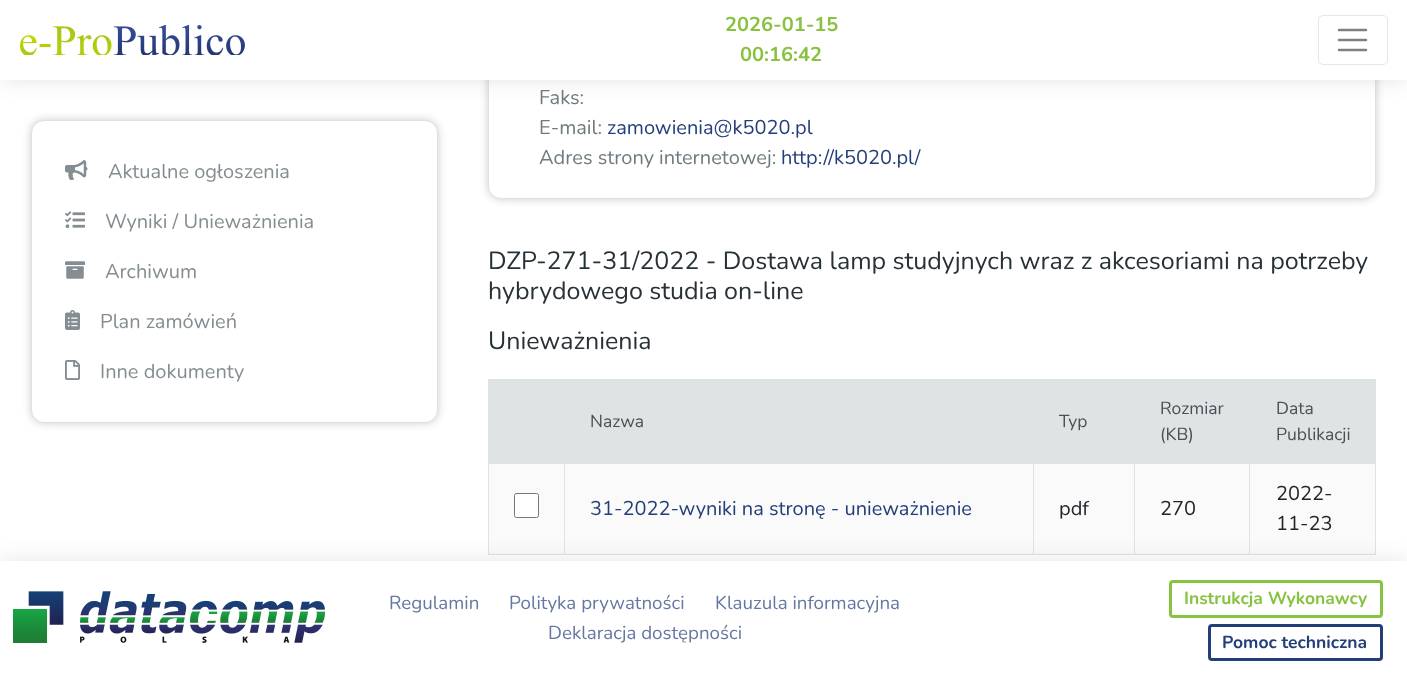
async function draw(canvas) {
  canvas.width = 1407;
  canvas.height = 673;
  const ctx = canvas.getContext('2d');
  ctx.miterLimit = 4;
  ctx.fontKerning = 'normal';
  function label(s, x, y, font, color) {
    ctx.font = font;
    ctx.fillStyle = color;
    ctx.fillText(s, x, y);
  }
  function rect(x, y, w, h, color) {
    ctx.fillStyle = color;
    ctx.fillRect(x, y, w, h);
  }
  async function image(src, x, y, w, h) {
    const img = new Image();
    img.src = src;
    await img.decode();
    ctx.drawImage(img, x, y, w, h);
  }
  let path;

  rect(0, 0, 1407, 673, '#fff');
  ctx.fillStyle = '#00000033';
  ctx.filter = 'blur(4px)';
  ctx.beginPath();
  ctx.roundRect(488, -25, 888, 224, 13);
  ctx.fill();
  ctx.filter = 'none';
  ctx.fillStyle = '#fff';
  ctx.beginPath();
  ctx.roundRect(488.5, -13.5, 887, 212, 12.5);
  ctx.fill();
  ctx.strokeStyle = '#dee2e6';
  ctx.stroke();
  ctx.fillStyle = '#0000001a';
  ctx.filter = 'blur(11px)';
  ctx.beginPath();
  ctx.rect(0, 0, 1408, 80);
  ctx.fill();
  ctx.filter = 'none';
  rect(0, 0, 1407, 80, '#fff');
  await image('assets/img1.png', 20, 25, 225, 30);
  label('2026-01-15', 725, 31, 'bold 20px Nunito', '#88c241');
  label('00:16:42', 740, 61, 'bold 20px Nunito', '#88c241');
  ctx.beginPath();
  ctx.roundRect(1318.5, 15.5, 69, 49, 4.5);
  ctx.strokeStyle = '#e6e6e6';
  ctx.stroke();
  path = new Path2D('M1339 30H1366M1339 40H1366M1339 50H1366');
  ctx.strokeStyle = '#808080';
  ctx.lineWidth = 2.5;
  ctx.lineCap = 'round';
  ctx.stroke(path);
  ctx.fillStyle = '#00000033';
  ctx.filter = 'blur(4px)';
  ctx.beginPath();
  ctx.roundRect(31, 120, 407, 303, 13);
  ctx.fill();
  ctx.filter = 'none';
  ctx.fillStyle = '#fff';
  ctx.beginPath();
  ctx.roundRect(31.5, 120.5, 406, 302, 12.5);
  ctx.fill();
  ctx.strokeStyle = '#dee2e6';
  ctx.lineWidth = 1;
  ctx.stroke();
  await image('assets/img2.png', 65, 160, 23, 20);
  label('Aktualne ogłoszenia', 108, 178, '20px Nunito', '#848d91');
  await image('assets/img3.png', 65, 211, 20, 18);
  label('Wyniki / Unieważnienia', 105, 228, '20px Nunito', '#848d91');
  await image('assets/img4.png', 65, 261, 20, 18);
  label('Archiwum', 105, 278, '20px Nunito', '#848d91');
  await image('assets/img5.png', 65, 310, 15, 20);
  label('Plan zamówień', 100, 328, '20px Nunito', '#848d91');
  await image('assets/img6.png', 65, 360, 15, 20);
  label('Inne dokumenty', 100, 378, '20px Nunito', '#848d91');
  label('Faks:', 539, 104, '20px Nunito', '#6f7a7f');
  label('E-mail:', 539, 134, '20px Nunito', '#6f7a7f');
  label('zamowienia@k5020.pl', 607, 134, '20px Nunito', '#233e78');
  label('Adres strony internetowej:', 539, 164, '20px Nunito', '#6f7a7f');
  label('http://k5020.pl/', 781, 164, '20px Nunito', '#233e78');
  label('DZP-271-31/2022 - Dostawa lamp studyjnych wraz z akcesoriami na potrzeby', 488, 269, '25px Nunito', '#273238');
  label('hybrydowego studia on-line', 488, 299, '25px Nunito', '#273238');
  label('Unieważnienia', 488, 349, '25px Nunito', '#273238');
  rect(489, 380, 75, 83, '#e0e3e4');
  rect(488, 379, 888, 1, '#e0e3e4');
  rect(1375, 463, 1, 92, '#e0e3e4');
  rect(1375, 379, 1, 85, '#dee2e6');
  rect(489, 464, 886, 90, '#fafafb');
  rect(1249, 554, 127, 1, '#e0e3e4');
  rect(1249, 463, 1, 92, '#e0e3e4');
  rect(1249, 463, 127, 1, '#e0e3e4');
  rect(1249, 379, 1, 85, '#dee2e6');
  rect(1134, 554, 116, 1, '#e0e3e4');
  rect(1134, 463, 1, 92, '#e0e3e4');
  rect(1134, 463, 116, 1, '#e0e3e4');
  rect(1134, 379, 1, 85, '#dee2e6');
  rect(1033, 554, 102, 1, '#e0e3e4');
  rect(1033, 463, 1, 92, '#e0e3e4');
  rect(1033, 463, 102, 1, '#e0e3e4');
  rect(1033, 379, 1, 85, '#dee2e6');
  rect(564, 554, 470, 1, '#e0e3e4');
  rect(564, 463, 1, 92, '#e0e3e4');
  rect(564, 463, 470, 1, '#e0e3e4');
  rect(564, 379, 1, 85, '#dee2e6');
  rect(488, 554, 77, 1, '#e0e3e4');
  rect(488, 463, 1, 92, '#e0e3e4');
  rect(488, 463, 77, 1, '#e0e3e4');
  rect(488, 379, 1, 85, '#dee2e6');
  rect(565, 380, 468, 83, '#e0e3e4');
  label('Nazwa', 590, 427, '17.5px Nunito', '#495057');
  rect(1034, 380, 100, 83, '#e0e3e4');
  label('Typ', 1059, 427, '17.5px Nunito', '#495057');
  rect(1135, 380, 114, 83, '#e0e3e4');
  label('Rozmiar', 1160, 414, '17.5px Nunito', '#495057');
  label('(KB)', 1160, 440, '17.5px Nunito', '#495057');
  rect(1250, 380, 125, 83, '#e0e3e4');
  label('Data', 1276, 414, '17.5px Nunito', '#495057');
  label('Publikacji', 1276, 440, '17.5px Nunito', '#495057');
  ctx.fillStyle = '#fff';
  ctx.beginPath();
  ctx.roundRect(514.5, 493.5, 24, 24, 2);
  ctx.fill();
  ctx.strokeStyle = '#767676';
  ctx.stroke();
  label('31-2022-wyniki na stronę - unieważnienie', 590, 515, '20px Nunito', '#233e78');
  label('pdf', 1059, 515, '20px Nunito', '#212529');
  label('270', 1160, 515, '20px Nunito', '#212529');
  label('2022-', 1276, 500, '20px Nunito', '#212529');
  label('11-23', 1276, 530, '20px Nunito', '#212529');
  ctx.fillStyle = '#0000001a';
  ctx.filter = 'blur(11px)';
  ctx.beginPath();
  ctx.rect(0, 561, 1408, 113);
  ctx.fill();
  ctx.filter = 'none';
  rect(0, 561, 1407, 112, '#fff');
  await image('assets/img7.png', 13, 591, 312, 52);
  label('Regulamin', 389, 609, '18.75px Nunito', '#6578a1');
  label('Polityka prywatności', 509, 609, '18.75px Nunito', '#6578a1');
  label('Klauzula informacyjna', 715, 609, '18.75px Nunito', '#6578a1');
  label('Deklaracja dostępności', 548, 639, '18.75px Nunito', '#6578a1');
  ctx.beginPath();
  ctx.roundRect(1170.5, 581.5, 211, 35, 2.5);
  ctx.strokeStyle = '#88c241';
  ctx.lineWidth = 3;
  ctx.stroke();
  label('Instrukcja Wykonawcy', 1184, 604, 'bold 17.5px Nunito', '#88c241');
  ctx.beginPath();
  ctx.roundRect(1209.5, 625.5, 172, 34, 2.5);
  ctx.strokeStyle = '#233e78';
  ctx.stroke();
  label('Pomoc techniczna', 1222, 648, 'bold 17.5px Nunito', '#233e78');
}

draw(document.querySelector('canvas'));
